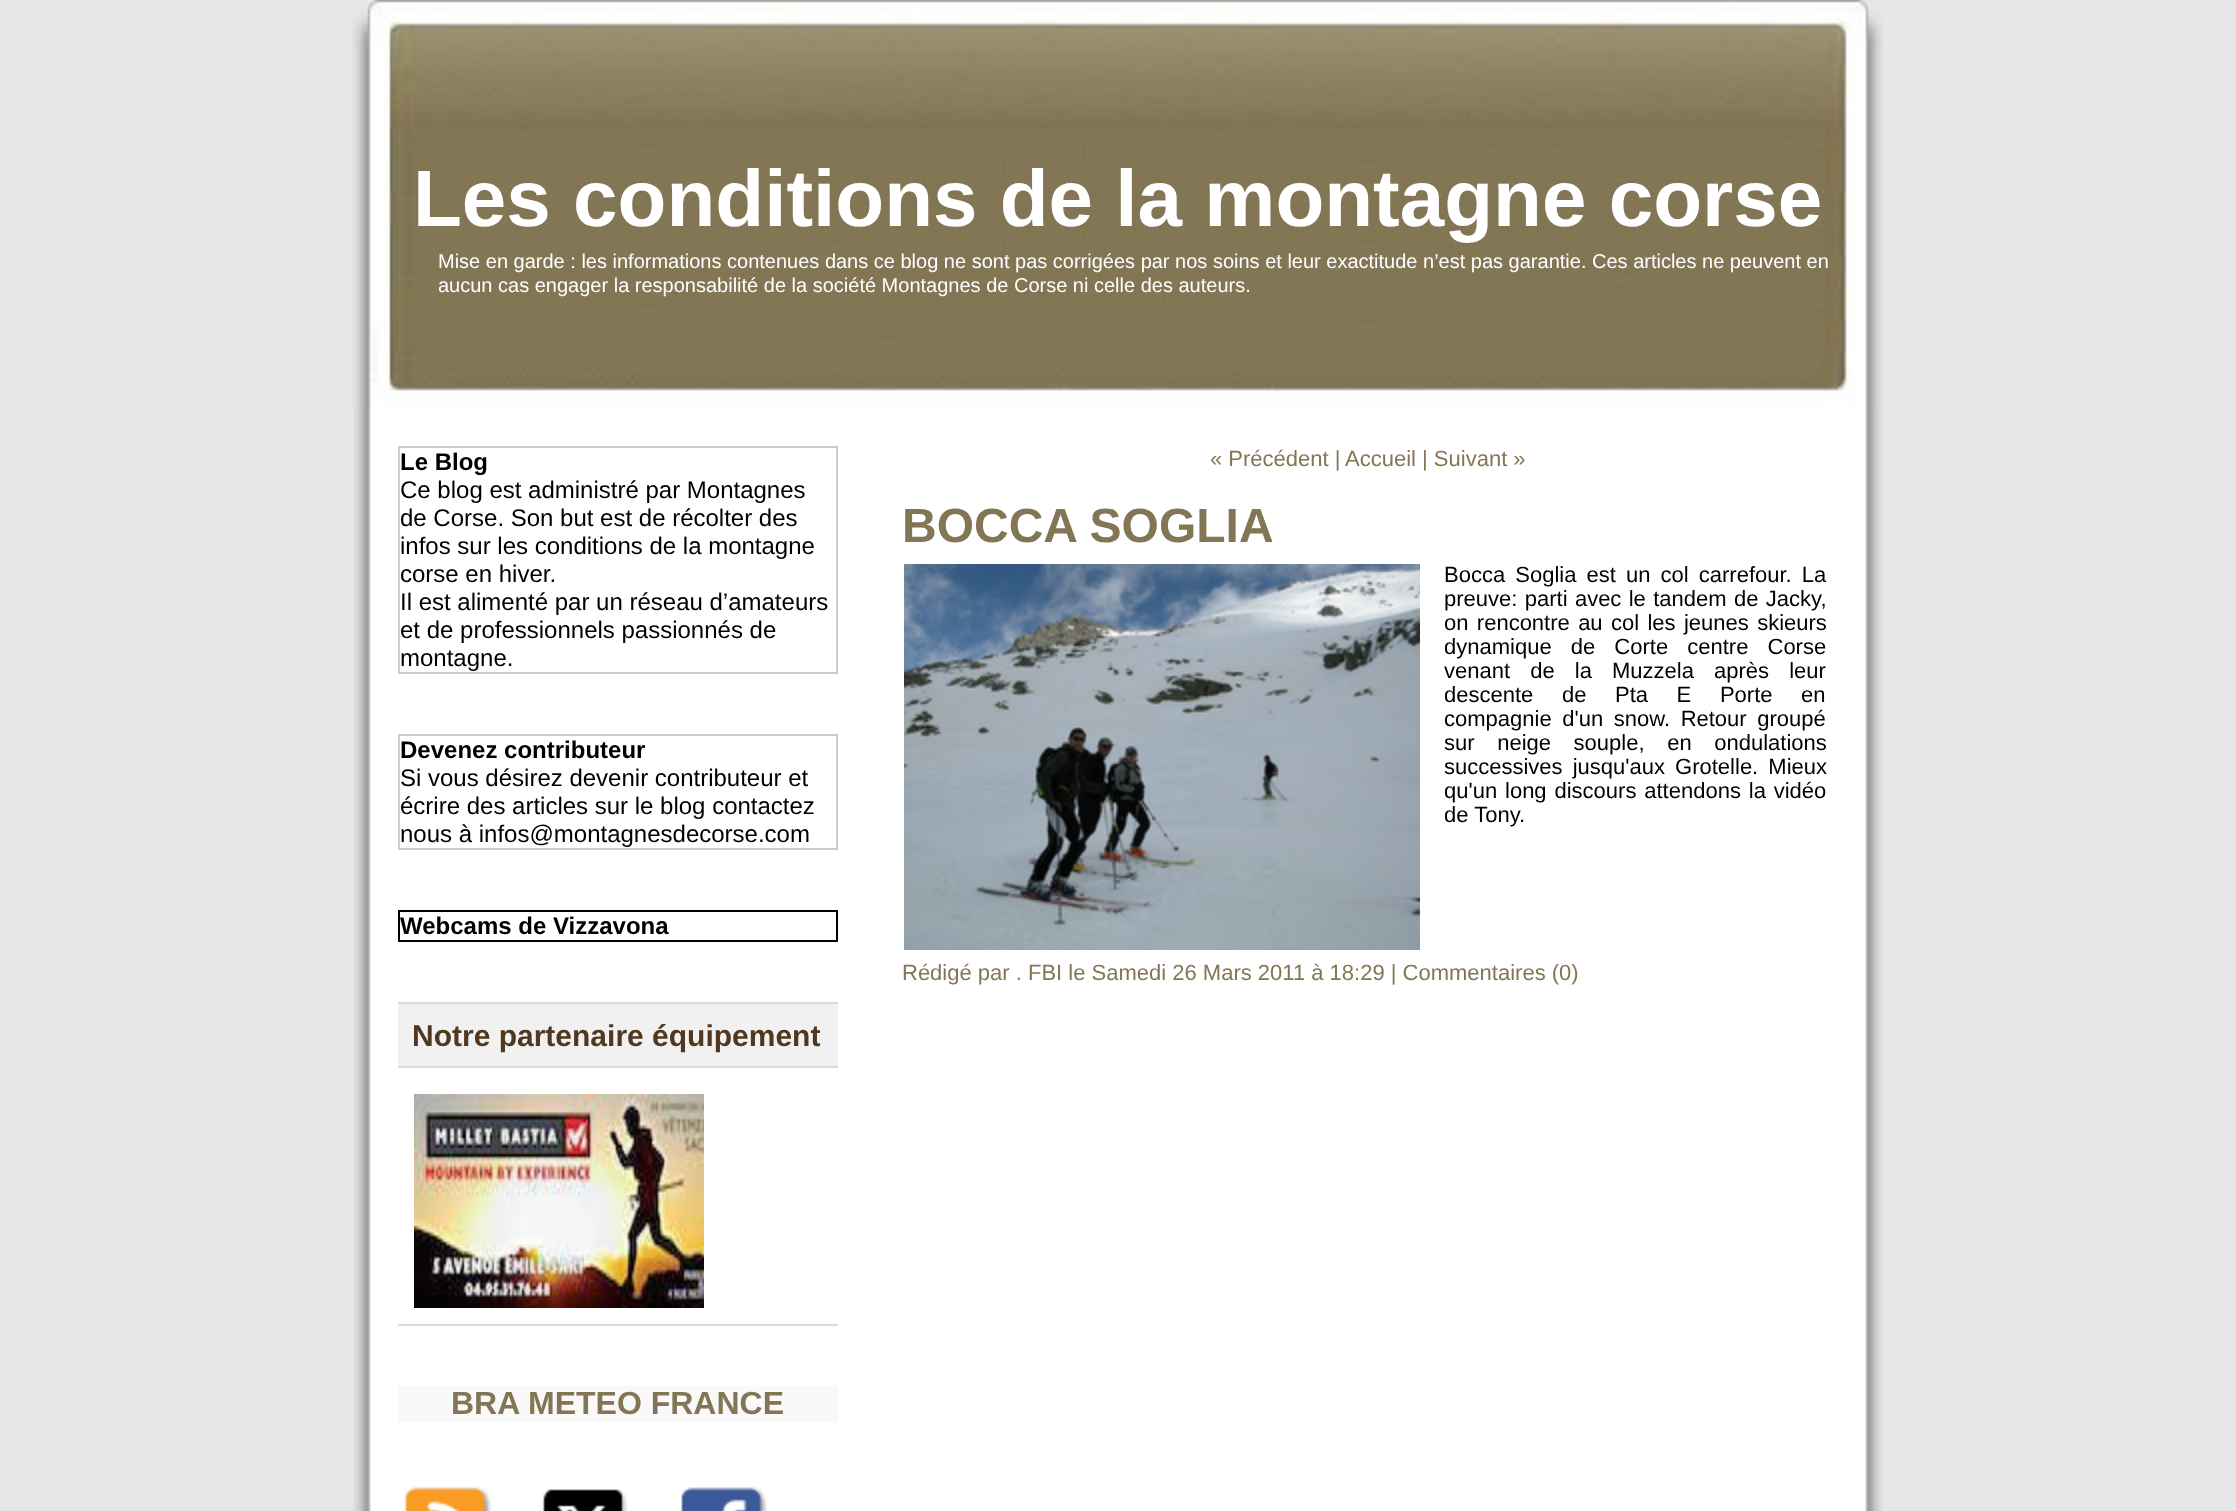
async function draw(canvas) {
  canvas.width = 2236;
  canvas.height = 1511;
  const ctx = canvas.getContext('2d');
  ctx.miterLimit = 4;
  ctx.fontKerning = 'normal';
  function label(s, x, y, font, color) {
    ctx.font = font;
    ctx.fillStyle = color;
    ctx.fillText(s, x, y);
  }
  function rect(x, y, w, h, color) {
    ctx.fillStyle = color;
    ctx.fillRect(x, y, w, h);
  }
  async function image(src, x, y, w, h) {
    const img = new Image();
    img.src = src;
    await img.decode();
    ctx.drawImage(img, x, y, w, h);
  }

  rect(0, 0, 2236, 1511, '#e7e7e7');
  await image('assets/img1.png', 353, 410, 1530, 1101);
  await image('assets/img2.png', 352, 0, 1532, 410);
  label('Les conditions de la montagne corse', 413, 226, 'bold 80px Liberation Sans', '#fff');
  label('Mise en garde : les informations contenues dans ce blog ne sont pas corrigées par nos soins et leur exactitude n’est pas garantie. Ces articles ne peuvent en', 438, 268, '20px Liberation Sans', '#fff');
  label('aucun cas engager la responsabilité de la société Montagnes de Corse ni celle des auteurs.', 438, 292, '20px Liberation Sans', '#fff');
  ctx.strokeStyle = '#ccc';
  ctx.lineWidth = 2;
  ctx.strokeRect(399, 447, 438, 226);
  label('Le Blog', 400, 470, 'bold 24px Liberation Sans', '#000');
  label('Ce blog est administré par Montagnes', 400, 498, '24px Liberation Sans', '#000');
  label('de Corse. Son but est de récolter des', 400, 526, '24px Liberation Sans', '#000');
  label('infos sur les conditions de la montagne', 400, 554, '24px Liberation Sans', '#000');
  label('corse en hiver.', 400, 582, '24px Liberation Sans', '#000');
  label('Il est alimenté par un réseau d’amateurs', 400, 610, '24px Liberation Sans', '#000');
  label('et de professionnels passionnés de', 400, 638, '24px Liberation Sans', '#000');
  label('montagne.', 400, 666, '24px Liberation Sans', '#000');
  ctx.strokeRect(399, 735, 438, 114);
  label('Devenez contributeur', 400, 758, 'bold 24px Liberation Sans', '#000');
  label('Si vous désirez devenir contributeur et', 400, 786, '24px Liberation Sans', '#000');
  label('écrire des articles sur le blog contactez', 400, 814, '24px Liberation Sans', '#000');
  label('nous à infos@montagnesdecorse.com', 400, 842, '24px Liberation Sans', '#000');
  ctx.strokeStyle = '#000';
  ctx.strokeRect(399, 911, 438, 30);
  label('Webcams de Vizzavona', 400, 934, 'bold 24px Liberation Sans', '#000');
  rect(398, 1002, 440, 2, '#dbdbdb');
  rect(398, 1004, 440, 62, '#f1f1f1');
  rect(398, 1066, 440, 2, '#dbdbdb');
  label('Notre partenaire équipement', 412, 1046, 'bold 30px Liberation Sans', '#50381e');
  rect(398, 1324, 440, 2, '#dbdbdb');
  await image('assets/img3.png', 414, 1094, 290, 214);
  rect(398, 1386, 440, 36, '#f9f9f9');
  label('BRA METEO FRANCE', 451, 1414, 'bold 32px Liberation Sans', '#827654');
  await image('assets/img4.png', 404, 1486, 88, 25);
  await image('assets/img5.png', 542, 1489, 86, 22);
  await image('assets/img6.png', 681, 1487, 86, 24);
  label('« Précédent |', 1210, 466, '22px Liberation Sans', '#827654');
  label('Accueil | Suivant »', 1345, 466, '22px Liberation Sans', '#827654');
  label('BOCCA SOGLIA', 902, 542, 'bold 48px Liberation Sans', '#827654');
  await image('assets/img7.png', 904, 564, 516, 386);
  ctx.wordSpacing = '4px';
  label('Bocca Soglia est un col carrefour. La', 1444, 582, '22px Liberation Sans', '#000');
  ctx.wordSpacing = '1.25px';
  label('preuve: parti avec le tandem de Jacky,', 1444, 606, '22px Liberation Sans', '#000');
  ctx.wordSpacing = '2.25px';
  label('on rencontre au col les jeunes skieurs', 1444, 630, '22px Liberation Sans', '#000');
  ctx.wordSpacing = '13px';
  label('dynamique de Corte centre Corse', 1444, 654, '22px Liberation Sans', '#000');
  ctx.wordSpacing = '14px';
  label('venant de la Muzzela après leur', 1444, 678, '22px Liberation Sans', '#000');
  ctx.wordSpacing = '22.5px';
  label('descente de Pta E Porte en', 1444, 702, '22px Liberation Sans', '#000');
  ctx.wordSpacing = '4.5px';
  label('compagnie d\'un snow. Retour groupé', 1444, 726, '22px Liberation Sans', '#000');
  ctx.wordSpacing = '16.5px';
  label('sur neige souple, en ondulations', 1444, 750, '22px Liberation Sans', '#000');
  ctx.wordSpacing = '4px';
  label('successives jusqu\'aux Grotelle. Mieux', 1444, 774, '22px Liberation Sans', '#000');
  ctx.wordSpacing = '1.75px';
  label('qu\'un long discours attendons la vidéo', 1444, 798, '22px Liberation Sans', '#000');
  ctx.wordSpacing = '0px';
  label('de Tony.', 1444, 822, '22px Liberation Sans', '#000');
  label('Rédigé par . FBI le Samedi 26 Mars 2011 à 18:29 | Commentaires (0)', 902, 980, '22px Liberation Sans', '#827654');
}

draw(document.querySelector('canvas'));
